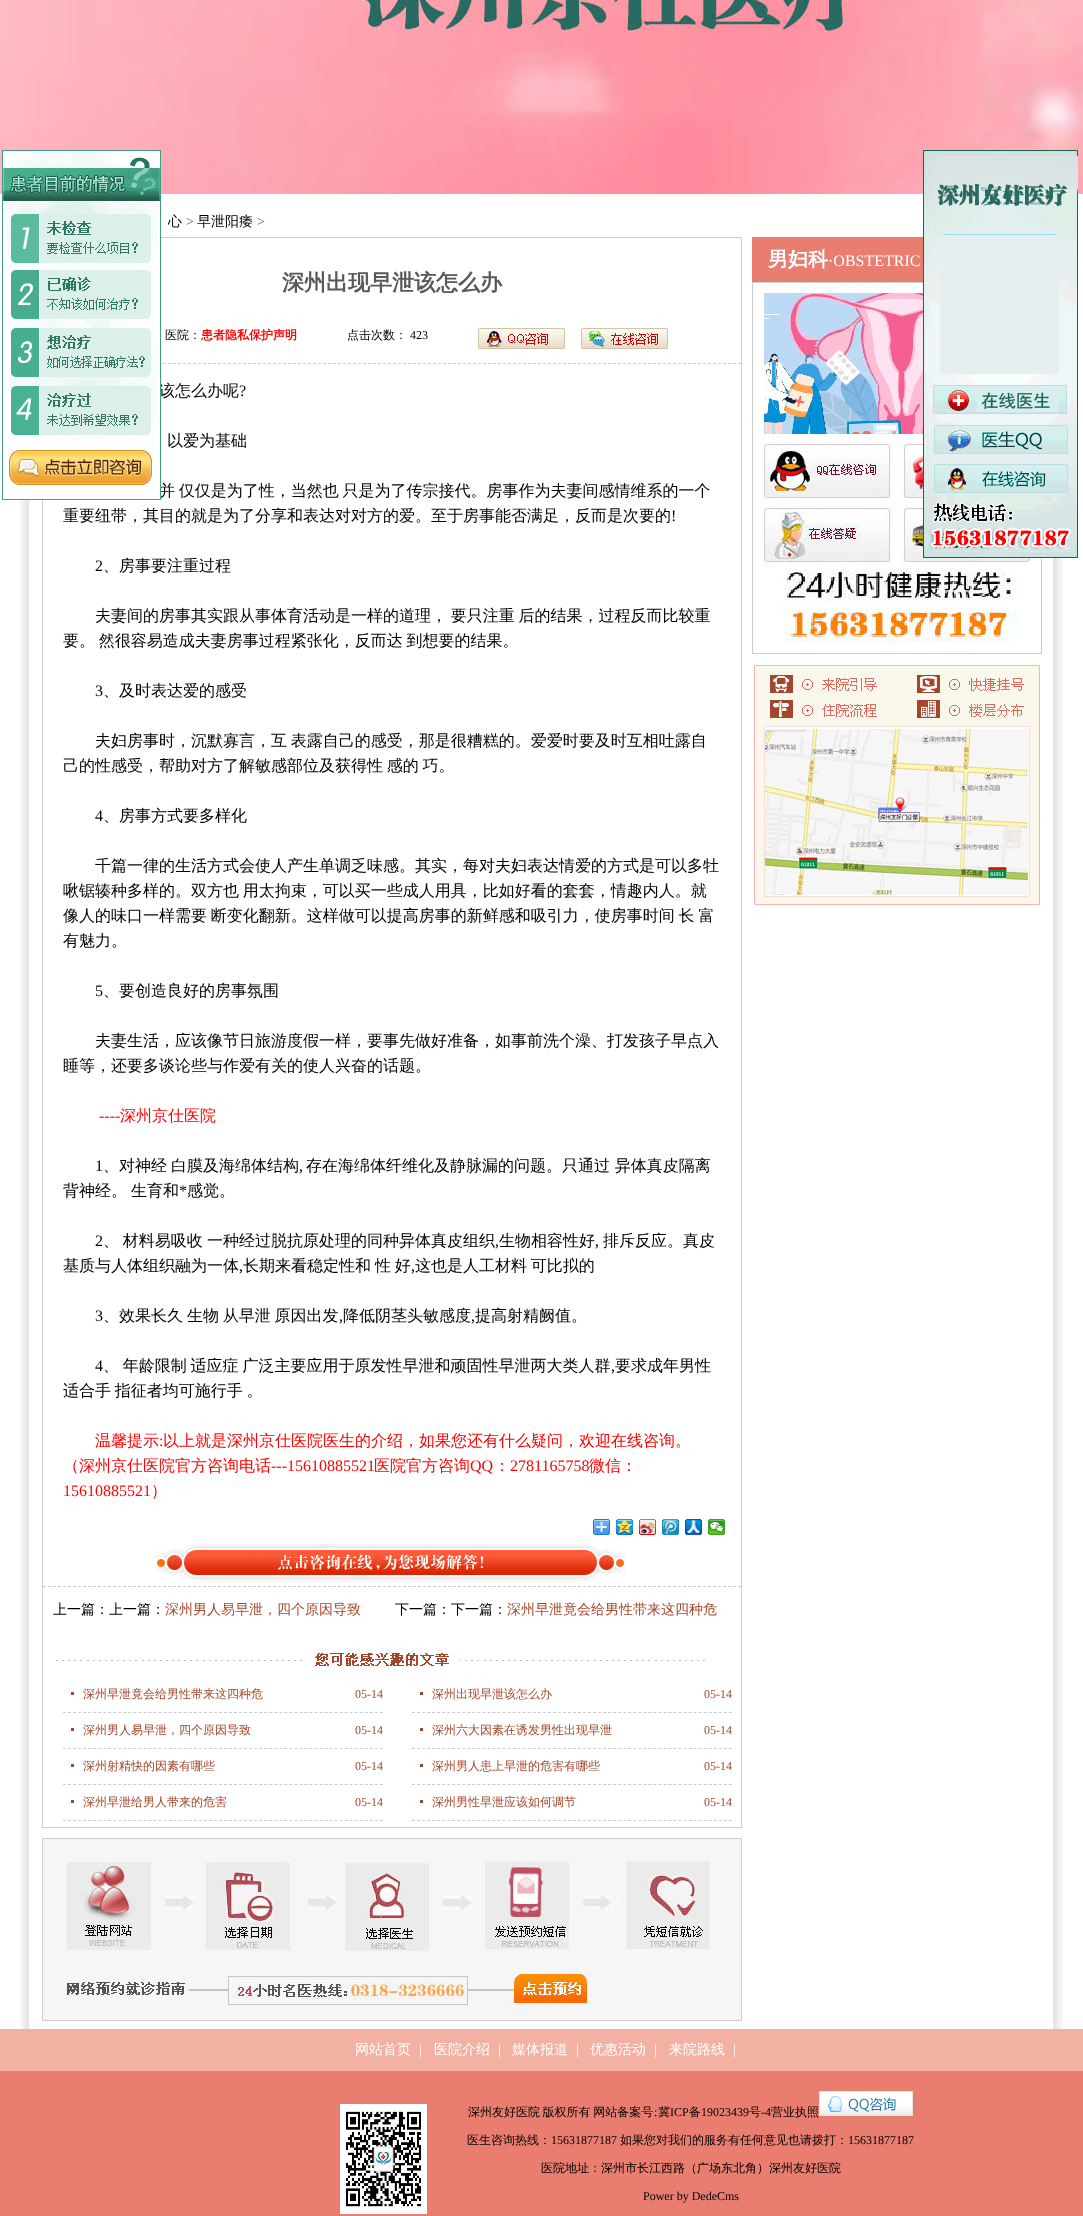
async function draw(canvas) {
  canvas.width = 1083;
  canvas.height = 2216;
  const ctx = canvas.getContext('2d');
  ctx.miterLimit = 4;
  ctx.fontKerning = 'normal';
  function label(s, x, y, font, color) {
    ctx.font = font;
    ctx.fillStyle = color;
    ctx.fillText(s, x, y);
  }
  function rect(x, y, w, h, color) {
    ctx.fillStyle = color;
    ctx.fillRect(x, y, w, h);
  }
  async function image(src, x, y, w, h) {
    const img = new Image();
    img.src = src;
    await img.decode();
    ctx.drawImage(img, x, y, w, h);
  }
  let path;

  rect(0, 0, 1083, 2216, '#fff');
  await image('assets/img1.png', 0, 0, 1083, 194);
  await image('assets/img4.png', 19, 194, 1044, 1835);
  ctx.strokeStyle = '#ccc';
  ctx.strokeRect(42.5, 237.5, 699, 1590);
  path = new Path2D('M43 363.5H741');
  ctx.setLineDash([3, 2]);
  ctx.stroke(path);
  label('该怎么办呢', 159, 396, '500 16px WenQuanYi Zen Hei', '#000');
  ctx.wordSpacing = '-1px';
  label('并 仅仅是为了性，当然也 只是为了传宗接代。房事作为夫妻间感情维系的一个', 159, 496, '500 16px WenQuanYi Zen Hei', '#000');
  await image('assets/img2.png', 2, 150, 159, 350);
  ctx.setLineDash([]);
  ctx.strokeRect(752.5, 282.5, 289, 371);
  await image('assets/img6.png', 764, 444, 266, 200);
  await image('assets/img3.png', 923, 150, 155, 408);
  ctx.wordSpacing = '0px';
  label('心', 168, 226, '500 14px WenQuanYi Zen Hei', '#000');
  label('>', 186, 226, '14px Liberation Serif', '#595959');
  label('早泄阳痿', 197, 226, '500 14px WenQuanYi Zen Hei', '#000');
  label('>', 257, 226, '14px Liberation Serif', '#595959');
  rect(752, 237, 171, 45, '#e97d6f');
  label('男妇科', 768, 266, 'bold 20px WenQuanYi Zen Hei', '#fff');
  label('·OBSTETRIC', 828, 266, '16px Liberation Serif', '#fff');
  await image('assets/img5.png', 764, 293, 159, 141);
  await image('assets/img7.png', 752, 664, 288, 242);
  label('深州出现早泄该怎么办', 282, 290, 'bold 22px WenQuanYi Zen Hei', '#595959');
  label('医院：', 165, 339, '500 12px WenQuanYi Zen Hei', '#000');
  label('患者隐私保护声明', 201, 339, 'bold 12px WenQuanYi Zen Hei', '#f00');
  label('点击次数：', 347, 339, '500 12px WenQuanYi Zen Hei', '#000');
  label('423', 410, 339, '12px Liberation Serif', '#000');
  await image('assets/img8.png', 478, 328, 87, 21);
  await image('assets/img9.png', 581, 328, 87, 21);
  label('?', 239, 396, '16px Liberation Serif', '#000');
  label('以爱为基础', 167, 446, '500 16px WenQuanYi Zen Hei', '#000');
  label('重要纽带，其目的就是为了分享和表达对对方的爱。至于房事能否满足，反而是次要的', 63, 521, '500 16px WenQuanYi Zen Hei', '#000');
  label('!', 671, 521, '16px Liberation Serif', '#000');
  label('2', 95, 571, '16px Liberation Serif', '#000');
  label('、房事要注重过程', 103, 571, '500 16px WenQuanYi Zen Hei', '#000');
  ctx.wordSpacing = '-1px';
  label('夫妻间的房事其实跟从事体育活动是一样的道理， 要只注重 后的结果，过程反而比较重', 95, 621, '500 16px WenQuanYi Zen Hei', '#000');
  label('要。 然很容易造成夫妻房事过程紧张化，反而达 到想要的结果。', 63, 646, '500 16px WenQuanYi Zen Hei', '#000');
  ctx.wordSpacing = '0px';
  label('3', 95, 696, '16px Liberation Serif', '#000');
  label('、及时表达爱的感受', 103, 696, '500 16px WenQuanYi Zen Hei', '#000');
  ctx.wordSpacing = '-1px';
  label('夫妇房事时，沉默寡言，互 表露自己的感受，那是很糟糕的。爱爱时要及时互相吐露自', 95, 746, '500 16px WenQuanYi Zen Hei', '#000');
  label('己的性感受，帮助对方了解敏感部位及获得性 感的 巧。', 63, 771, '500 16px WenQuanYi Zen Hei', '#000');
  ctx.wordSpacing = '0px';
  label('4', 95, 821, '16px Liberation Serif', '#000');
  label('、房事方式要多样化', 103, 821, '500 16px WenQuanYi Zen Hei', '#000');
  label('千篇一律的生活方式会使人产生单调乏味感。其实，每对夫妇表达情爱的方式是可以多牡', 95, 871, '500 16px WenQuanYi Zen Hei', '#000');
  ctx.wordSpacing = '-1px';
  label('啾锯辏种多样的。双方也 用太拘束，可以买一些成人用具，比如好看的套套，情趣内人。就', 63, 896, '500 16px WenQuanYi Zen Hei', '#000');
  label('像人的味口一样需要 断变化翻新。这样做可以提高房事的新鲜感和吸引力，使房事时间 长 富', 63, 921, '500 16px WenQuanYi Zen Hei', '#000');
  ctx.wordSpacing = '0px';
  label('有魅力。', 63, 946, '500 16px WenQuanYi Zen Hei', '#000');
  label('5', 95, 996, '16px Liberation Serif', '#000');
  label('、要创造良好的房事氛围', 103, 996, '500 16px WenQuanYi Zen Hei', '#000');
  label('夫妻生活，应该像节日旅游度假一样，要事先做好准备，如事前洗个澡、打发孩子早点入', 95, 1046, '500 16px WenQuanYi Zen Hei', '#000');
  label('睡等，还要多谈论些与作爱有关的使人兴奋的话题。', 63, 1071, '500 16px WenQuanYi Zen Hei', '#000');
  label('----', 99, 1121, '16px Liberation Serif', '#f00');
  label('深州京仕医院', 120, 1121, '500 16px WenQuanYi Zen Hei', '#f00');
  label('1', 95, 1171, '16px Liberation Serif', '#000');
  label('、对神经', 103, 1171, '500 16px WenQuanYi Zen Hei', '#000');
  label('白膜及海绵体结构', 171, 1171, '500 16px WenQuanYi Zen Hei', '#000');
  label('存在海绵体纤维化及静脉漏的问题。只通过 异体真皮隔离', 306, 1171, '500 16px WenQuanYi Zen Hei', '#000');
  label(',', 299, 1171, '16px Liberation Serif', '#000');
  label('背神经。', 63, 1196, '500 16px WenQuanYi Zen Hei', '#000');
  label('生育和', 131, 1196, '500 16px WenQuanYi Zen Hei', '#000');
  label('*', 179, 1196, '16px Liberation Serif', '#000');
  label('感觉。', 187, 1196, '500 16px WenQuanYi Zen Hei', '#000');
  label('2', 95, 1246, '16px Liberation Serif', '#000');
  ctx.wordSpacing = '-1px';
  label('、 材料易吸收', 103, 1246, '500 16px WenQuanYi Zen Hei', '#000');
  ctx.wordSpacing = '0px';
  label('一种经过脱抗原处理的同种异体真皮组织', 207, 1246, '500 16px WenQuanYi Zen Hei', '#000');
  label('生物相容性好', 499, 1246, '500 16px WenQuanYi Zen Hei', '#000');
  label('排斥反应。真皮', 603, 1246, '500 16px WenQuanYi Zen Hei', '#000');
  label(',', 495, 1246, '16px Liberation Serif', '#000');
  label(',', 595, 1246, '16px Liberation Serif', '#000');
  label('基质与人体组织融为一体', 63, 1271, '500 16px WenQuanYi Zen Hei', '#000');
  label(',', 239, 1271, '16px Liberation Serif', '#000');
  label('长期来看稳定性和', 243, 1271, '500 16px WenQuanYi Zen Hei', '#000');
  ctx.wordSpacing = '-1px';
  label('性 好', 375, 1271, '500 16px WenQuanYi Zen Hei', '#000');
  ctx.wordSpacing = '0px';
  label(',', 411, 1271, '16px Liberation Serif', '#000');
  ctx.wordSpacing = '-1px';
  label('这也是人工材料 可比拟的', 415, 1271, '500 16px WenQuanYi Zen Hei', '#000');
  ctx.wordSpacing = '0px';
  label('3', 95, 1321, '16px Liberation Serif', '#000');
  label('、效果长久', 103, 1321, '500 16px WenQuanYi Zen Hei', '#000');
  ctx.wordSpacing = '-1px';
  label('生物 从早泄 原因出发', 187, 1321, '500 16px WenQuanYi Zen Hei', '#000');
  ctx.wordSpacing = '0px';
  label(',', 339, 1321, '16px Liberation Serif', '#000');
  label('降低阴茎头敏感度', 343, 1321, '500 16px WenQuanYi Zen Hei', '#000');
  label(',', 471, 1321, '16px Liberation Serif', '#000');
  label('提高射精阙值。', 475, 1321, '500 16px WenQuanYi Zen Hei', '#000');
  label('4', 95, 1371, '16px Liberation Serif', '#000');
  ctx.wordSpacing = '-1px';
  label('、 年龄限制 适应症 广泛主要应用于原发性早泄和顽固性早泄两大类人群', 103, 1371, '500 16px WenQuanYi Zen Hei', '#000');
  ctx.wordSpacing = '0px';
  label('要求成年男性', 615, 1371, '500 16px WenQuanYi Zen Hei', '#000');
  label(',', 611, 1371, '16px Liberation Serif', '#000');
  ctx.wordSpacing = '-1px';
  label('适合手 指征者均可施行手 。', 63, 1396, '500 16px WenQuanYi Zen Hei', '#000');
  ctx.wordSpacing = '0px';
  label('温馨提示', 95, 1446, '500 16px WenQuanYi Zen Hei', '#f00');
  label(':', 159, 1446, '16px Liberation Serif', '#f00');
  label('以上就是深州京仕医院医生的介绍，如果您还有什么疑问，欢迎在线咨询。', 163, 1446, '500 16px WenQuanYi Zen Hei', '#f00');
  label('（深州京仕医院官方咨询电话', 63, 1471, '500 16px WenQuanYi Zen Hei', '#f00');
  label('---15610885521', 271, 1471, '16px Liberation Serif', '#f00');
  label('医院官方咨询', 374, 1471, '500 16px WenQuanYi Zen Hei', '#f00');
  label('QQ', 470, 1471, '16px Liberation Serif', '#f00');
  label('：', 494, 1471, '500 16px WenQuanYi Zen Hei', '#f00');
  label('2781165758', 510, 1471, '16px Liberation Serif', '#f00');
  label('微信：', 589, 1471, '500 16px WenQuanYi Zen Hei', '#f00');
  label('15610885521', 63, 1496, '16px Liberation Serif', '#f00');
  label('）', 151, 1496, '500 16px WenQuanYi Zen Hei', '#f00');
  await image('assets/img10.png', 593, 1519, 17, 16);
  await image('assets/img11.png', 616, 1519, 17, 16);
  await image('assets/img12.png', 639, 1519, 17, 16);
  await image('assets/img13.png', 662, 1519, 17, 16);
  await image('assets/img14.png', 685, 1519, 17, 16);
  await image('assets/img15.png', 708, 1519, 17, 16);
  path = new Path2D('M43 1586.5H741');
  ctx.setLineDash([3, 2]);
  ctx.stroke(path);
  await image('assets/img16.png', 156, 1543, 470, 39);
  label('上一篇：上一篇：', 53, 1614, '500 14px WenQuanYi Zen Hei', '#000');
  label('深州男人易早泄，四个原因导致', 165, 1614, '500 14px WenQuanYi Zen Hei', '#a4462a');
  label('下一篇：下一篇：', 395, 1614, '500 14px WenQuanYi Zen Hei', '#000');
  label('深州早泄竟会给男性带来这四种危', 507, 1614, '500 14px WenQuanYi Zen Hei', '#a4462a');
  await image('assets/img17.png', 56, 1652, 649, 15);
  rect(71, 1692, 3, 3, '#a4462a');
  path = new Path2D('M63 1712.5H383');
  ctx.setLineDash([3, 2.03]);
  ctx.stroke(path);
  label('深州早泄竟会给男性带来这四种危', 83, 1698, '500 12px WenQuanYi Zen Hei', '#a4462a');
  label('05-14', 355, 1698, '12px Liberation Serif', '#a4462a');
  rect(420, 1692, 3, 3, '#a4462a');
  path = new Path2D('M412 1712.5H732');
  ctx.stroke(path);
  label('深州出现早泄该怎么办', 432, 1698, '500 12px WenQuanYi Zen Hei', '#a4462a');
  label('05-14', 704, 1698, '12px Liberation Serif', '#a4462a');
  rect(71, 1728, 3, 3, '#a4462a');
  path = new Path2D('M63 1748.5H383');
  ctx.stroke(path);
  label('深州男人易早泄，四个原因导致', 83, 1734, '500 12px WenQuanYi Zen Hei', '#a4462a');
  label('05-14', 355, 1734, '12px Liberation Serif', '#a4462a');
  rect(420, 1728, 3, 3, '#a4462a');
  path = new Path2D('M412 1748.5H732');
  ctx.stroke(path);
  label('深州六大因素在诱发男性出现早泄', 432, 1734, '500 12px WenQuanYi Zen Hei', '#a4462a');
  label('05-14', 704, 1734, '12px Liberation Serif', '#a4462a');
  rect(71, 1764, 3, 3, '#a4462a');
  path = new Path2D('M63 1784.5H383');
  ctx.stroke(path);
  label('深州射精快的因素有哪些', 83, 1770, '500 12px WenQuanYi Zen Hei', '#a4462a');
  label('05-14', 355, 1770, '12px Liberation Serif', '#a4462a');
  rect(420, 1764, 3, 3, '#a4462a');
  path = new Path2D('M412 1784.5H732');
  ctx.stroke(path);
  label('深州男人患上早泄的危害有哪些', 432, 1770, '500 12px WenQuanYi Zen Hei', '#a4462a');
  label('05-14', 704, 1770, '12px Liberation Serif', '#a4462a');
  rect(71, 1800, 3, 3, '#a4462a');
  path = new Path2D('M63 1820.5H383');
  ctx.stroke(path);
  label('深州早泄给男人带来的危害', 83, 1806, '500 12px WenQuanYi Zen Hei', '#a4462a');
  label('05-14', 355, 1806, '12px Liberation Serif', '#a4462a');
  rect(420, 1800, 3, 3, '#a4462a');
  path = new Path2D('M412 1820.5H732');
  ctx.stroke(path);
  label('深州男性早泄应该如何调节', 432, 1806, '500 12px WenQuanYi Zen Hei', '#a4462a');
  label('05-14', 704, 1806, '12px Liberation Serif', '#a4462a');
  ctx.fillStyle = '#f6f6f6';
  ctx.beginPath();
  ctx.rect(42.5, 1838.5, 699, 182);
  ctx.fill();
  ctx.setLineDash([]);
  ctx.stroke();
  await image('assets/img18.png', 67, 1860, 643, 147);
  rect(0, 2029, 1083, 42, '#f3b1a3');
  label('网站首页', 355, 2054, '500 14px WenQuanYi Zen Hei', '#fff');
  label('|', 419, 2054, '14px Liberation Serif', '#fff');
  label('医院介绍', 434, 2054, '500 14px WenQuanYi Zen Hei', '#fff');
  label('|', 498, 2054, '14px Liberation Serif', '#fff');
  label('媒体报道', 512, 2054, '500 14px WenQuanYi Zen Hei', '#fff');
  label('|', 576, 2054, '14px Liberation Serif', '#fff');
  label('优惠活动', 590, 2054, '500 14px WenQuanYi Zen Hei', '#fff');
  label('|', 654, 2054, '14px Liberation Serif', '#fff');
  label('来院路线', 669, 2054, '500 14px WenQuanYi Zen Hei', '#fff');
  label('|', 733, 2054, '14px Liberation Serif', '#fff');
  rect(0, 2071, 1083, 145, '#e97d6f');
  await image('assets/img19.png', 340, 2104, 87, 110);
  ctx.wordSpacing = '-1px';
  label('深州友好医院 版权所有 网站备案号', 468, 2116, '500 12px WenQuanYi Zen Hei', '#000');
  ctx.wordSpacing = '0px';
  label(':', 654, 2116, '12px Liberation Serif', '#000');
  label('冀', 658, 2116, '500 12px WenQuanYi Zen Hei', '#000');
  label('ICP', 670, 2116, '12px Liberation Serif', '#000');
  label('备', 689, 2116, '500 12px WenQuanYi Zen Hei', '#000');
  label('19023439', 701, 2116, '12px Liberation Serif', '#000');
  label('号', 749, 2116, '500 12px WenQuanYi Zen Hei', '#000');
  label('-4', 761, 2116, '12px Liberation Serif', '#000');
  label('营业执照', 771, 2116, '500 12px WenQuanYi Zen Hei', '#000');
  await image('assets/img20.png', 819, 2091, 94, 25);
  label('医生咨询热线：', 467, 2144, '500 12px WenQuanYi Zen Hei', '#000');
  label('15631877187', 551, 2144, '12px Liberation Serif', '#000');
  label('如果您对我们的服务有任何意见也请拨打：', 620, 2144, '500 12px WenQuanYi Zen Hei', '#000');
  label('15631877187', 848, 2144, '12px Liberation Serif', '#000');
  label('医院地址：深州市长江西路（广场东北角）深州友好医院', 541, 2172, '500 12px WenQuanYi Zen Hei', '#000');
  label('Power by DedeCms', 643, 2200, '12px Liberation Serif', '#000');
}

draw(document.querySelector('canvas'));
